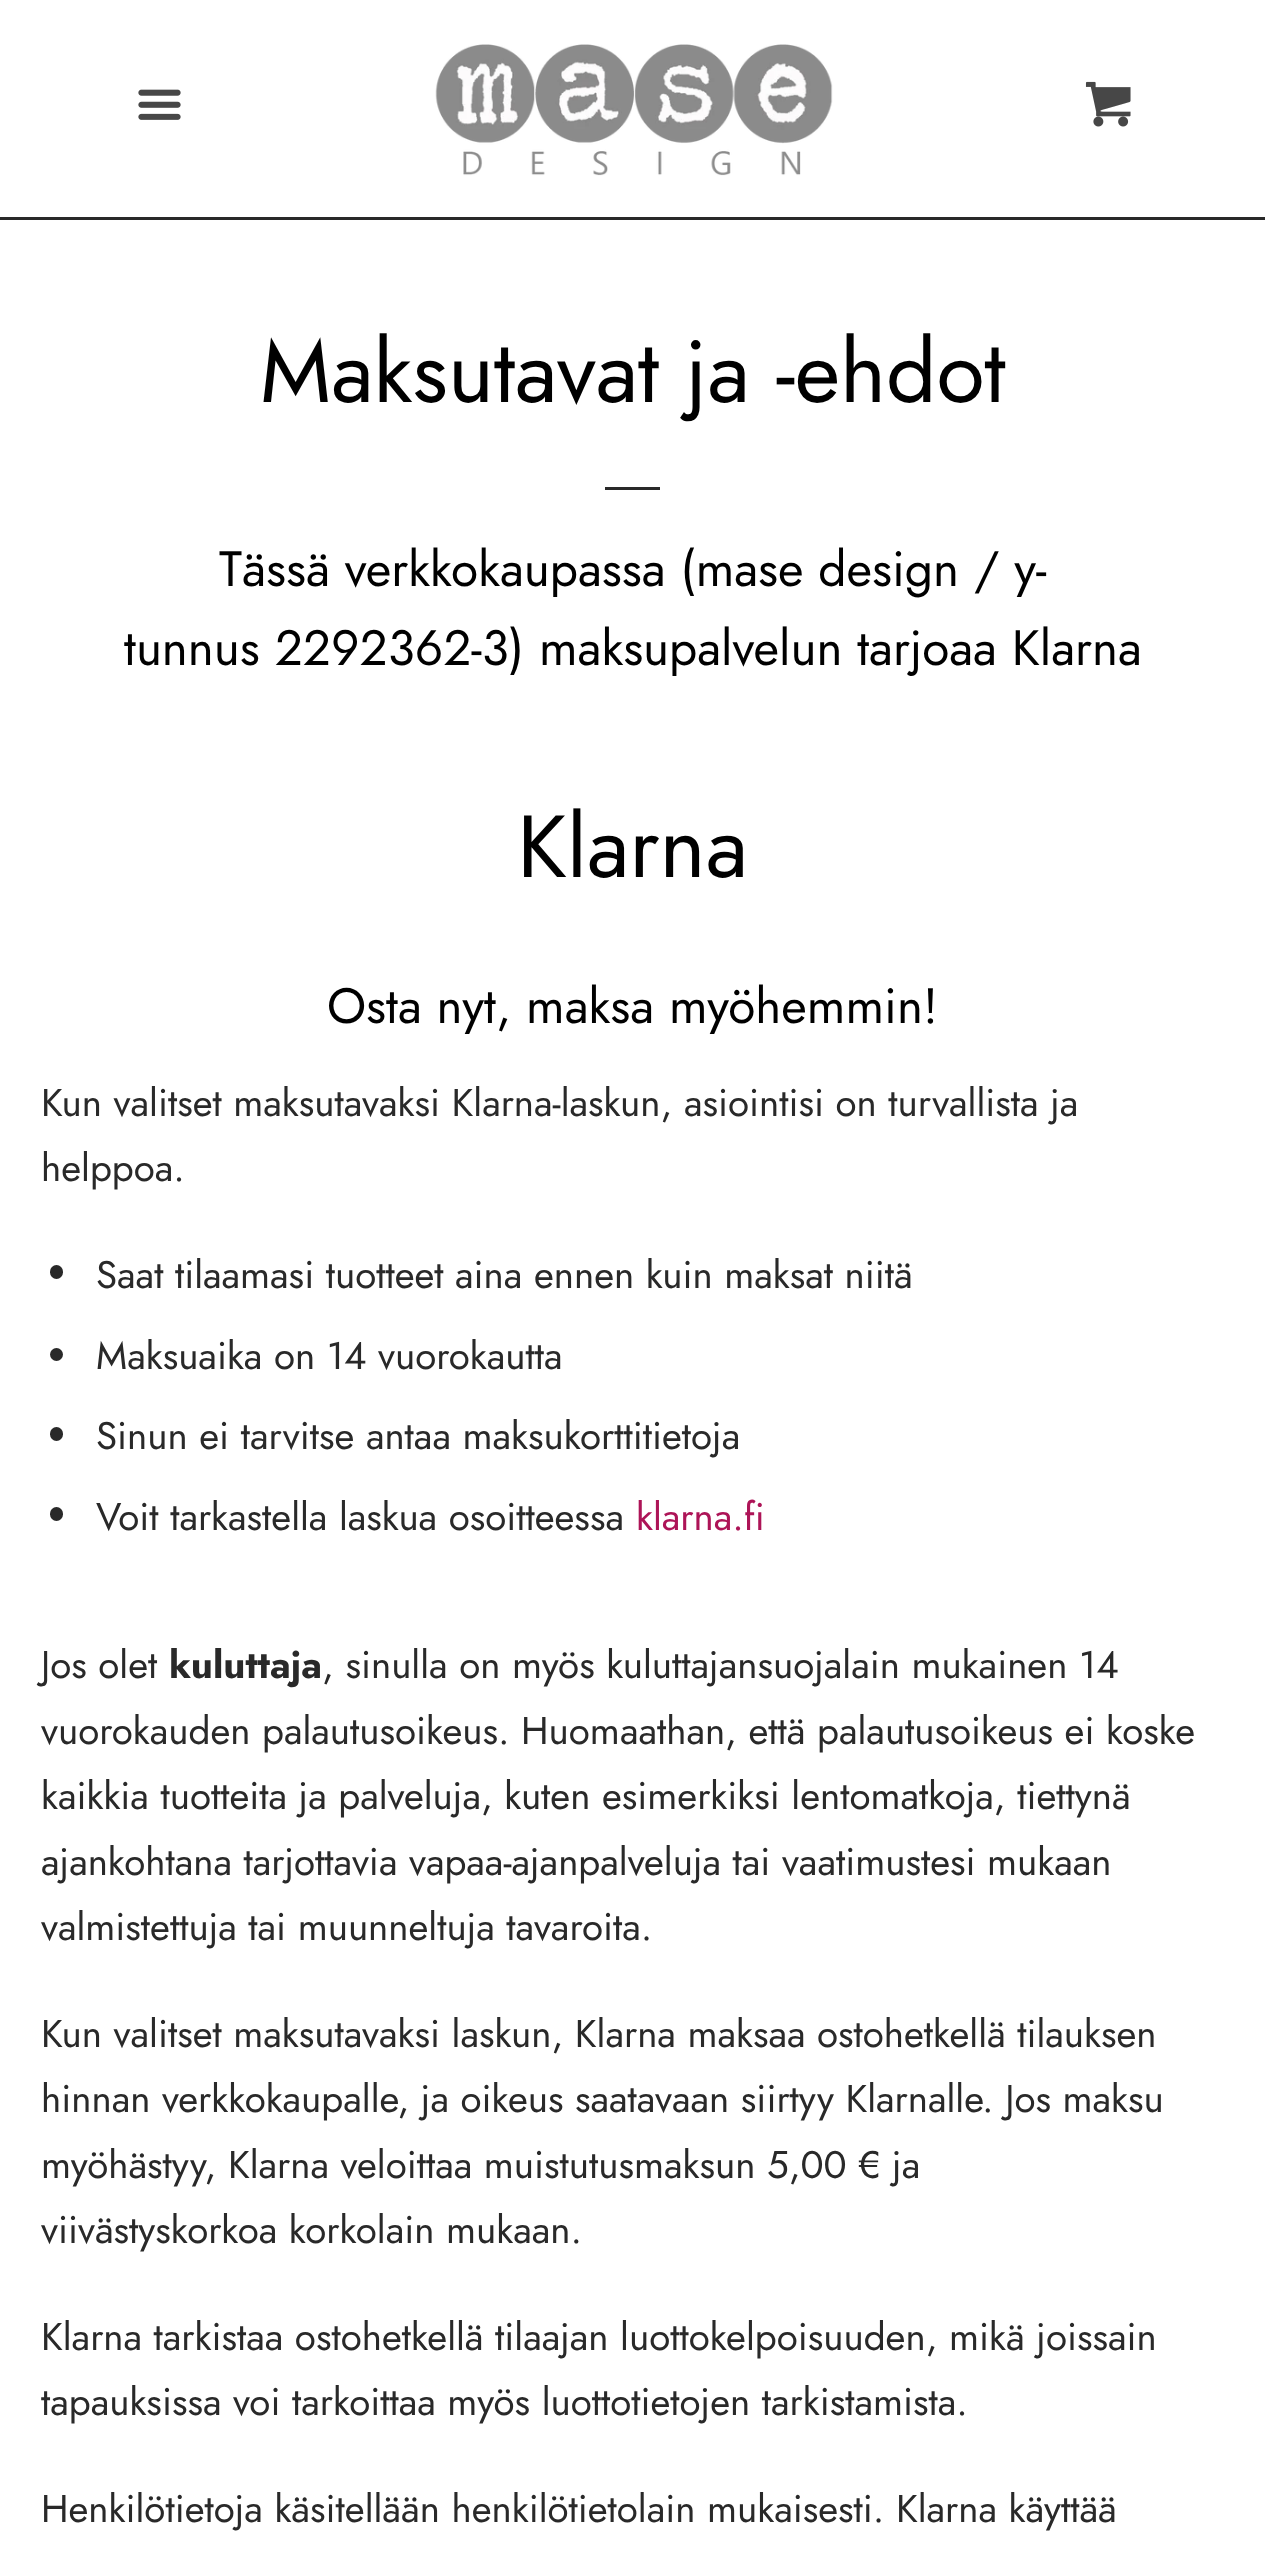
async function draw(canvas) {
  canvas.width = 1265;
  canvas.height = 2567;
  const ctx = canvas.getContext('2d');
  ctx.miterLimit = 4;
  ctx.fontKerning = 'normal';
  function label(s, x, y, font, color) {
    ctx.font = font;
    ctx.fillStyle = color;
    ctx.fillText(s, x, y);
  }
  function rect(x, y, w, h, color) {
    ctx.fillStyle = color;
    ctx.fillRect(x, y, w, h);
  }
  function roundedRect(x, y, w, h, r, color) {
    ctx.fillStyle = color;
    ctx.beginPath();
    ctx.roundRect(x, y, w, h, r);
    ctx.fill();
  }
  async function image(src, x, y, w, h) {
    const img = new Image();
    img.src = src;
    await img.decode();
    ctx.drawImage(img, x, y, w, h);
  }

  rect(0, 0, 1265, 2567, '#fff');
  rect(0, 217, 1265, 3, '#292929');
  await image('assets/img1.png', 138, 89, 43, 31);
  await image('assets/img2.png', 435, 44, 398, 132);
  await image('assets/img3.png', 1085, 81, 46, 46);
  label('Maksutavat ja -ehdot', 260, 402, '88px Jost', '#000');
  rect(605, 487, 55, 3, '#292929');
  label('Tässä verkkokaupassa (mase design / y-', 219, 586, '49.5px Jost', '#000');
  label('tunnus 2292362-3) maksupalvelun tarjoaa Klarna', 124, 665, '49.5px Jost', '#000');
  label('Klarna', 517, 877, '88px Jost', '#000');
  label('Osta nyt, maksa myöhemmin!', 327, 1023, '49.5px Jost', '#000');
  label('Kun valitset maksutavaksi Klarna-laskun, asiointisi on turvallista ja', 41, 1116, '38.5px Jost', '#292929');
  label('helppoa.', 41, 1181, '38.5px Jost', '#292929');
  roundedRect(50, 1265, 13, 14, 6.5, '#292929');
  label('Saat tilaamasi tuotteet aina ennen kuin maksat niitä', 96, 1288, '38.5px Jost', '#292929');
  ctx.beginPath();
  ctx.arc(56.5, 1354.5, 6.5, 0, 2 * Math.PI);
  ctx.fill();
  label('Maksuaika on 14 vuorokautta', 96, 1369, '38.5px Jost', '#292929');
  roundedRect(50, 1427, 13, 14, 6.5, '#292929');
  label('Sinun ei tarvitse antaa maksukorttitietoja', 96, 1449, '38.5px Jost', '#292929');
  roundedRect(50, 1507, 13, 14, 6.5, '#292929');
  label('Voit tarkastella laskua osoitteessa', 96, 1530, '38.5px Jost', '#292929');
  label('klarna.fi', 636, 1530, '38.5px Jost', '#ad1457');
  label('Jos olet', 41, 1678, '38.5px Jost', '#292929');
  label('kuluttaja', 169, 1678, 'bold 38.5px Jost', '#292929');
  label(', sinulla on myös kuluttajansuojalain mukainen 14', 322, 1678, '38.5px Jost', '#292929');
  label('vuorokauden palautusoikeus. Huomaathan, että palautusoikeus ei koske', 41, 1744, '38.5px Jost', '#292929');
  label('kaikkia tuotteita ja palveluja, kuten esimerkiksi lentomatkoja, tiettynä', 41, 1809, '38.5px Jost', '#292929');
  label('ajankohtana tarjottavia vapaa-ajanpalveluja tai vaatimustesi mukaan', 41, 1875, '38.5px Jost', '#292929');
  label('valmistettuja tai muunneltuja tavaroita.', 41, 1940, '38.5px Jost', '#292929');
  label('Kun valitset maksutavaksi laskun, Klarna maksaa ostohetkellä tilauksen', 41, 2047, '38.5px Jost', '#292929');
  label('hinnan verkkokaupalle, ja oikeus saatavaan siirtyy Klarnalle. Jos maksu', 41, 2112, '38.5px Jost', '#292929');
  label('myöhästyy, Klarna veloittaa muistutusmaksun 5,00 € ja', 41, 2178, '38.5px Jost', '#292929');
  label('viivästyskorkoa korkolain mukaan.', 41, 2243, '38.5px Jost', '#292929');
  label('Klarna tarkistaa ostohetkellä tilaajan luottokelpoisuuden, mikä joissain', 41, 2350, '38.5px Jost', '#292929');
  label('tapauksissa voi tarkoittaa myös luottotietojen tarkistamista.', 41, 2415, '38.5px Jost', '#292929');
  label('Henkilötietoja käsitellään henkilötietolain mukaisesti. Klarna käyttää', 41, 2522, '38.5px Jost', '#292929');
}

draw(document.querySelector('canvas'));
